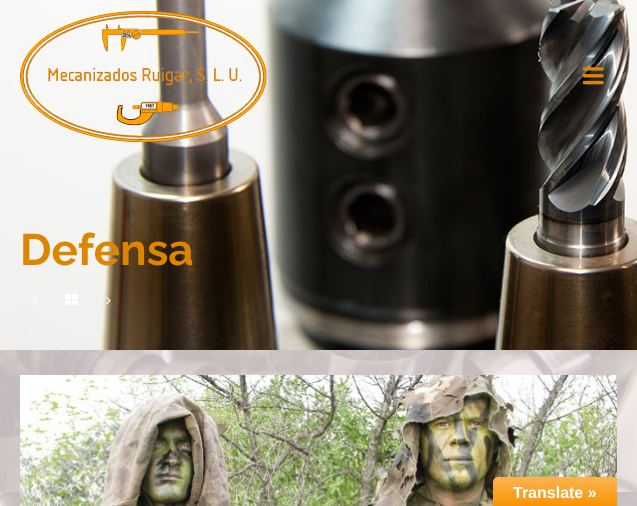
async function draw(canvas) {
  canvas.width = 637;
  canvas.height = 506;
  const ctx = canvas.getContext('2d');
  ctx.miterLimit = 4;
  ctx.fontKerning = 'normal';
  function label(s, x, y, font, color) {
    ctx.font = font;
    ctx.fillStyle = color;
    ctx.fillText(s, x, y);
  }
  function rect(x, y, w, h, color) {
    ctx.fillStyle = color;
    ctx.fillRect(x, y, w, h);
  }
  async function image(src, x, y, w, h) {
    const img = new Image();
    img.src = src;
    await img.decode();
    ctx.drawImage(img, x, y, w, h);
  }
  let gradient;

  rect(0, 0, 637, 506, '#fff');
  await image('assets/img4.png', 0, 0, 637, 350);
  await image('assets/img1.png', 20, 10, 247, 132);
  await image('assets/img2.png', 583, 67, 21, 18);
  await image('assets/img3.png', 0, 350, 637, 156);
  label('Defensa', 20, 265, 'bold 44px Raleway', '#dd8500');
  await image('assets/img5.png', 32, 297, 5, 8);
  await image('assets/img6.png', 65, 294, 13, 11);
  await image('assets/img7.png', 106, 296, 5, 9);
  await image('assets/img8.png', 20, 375, 597, 131);
  gradient = ctx.createLinearGradient(555, 477, 555, 506);
  gradient.addColorStop(0, '#fbb450');
  gradient.addColorStop(1, '#f89406');
  ctx.fillStyle = gradient;
  ctx.beginPath();
  ctx.roundRect(493, 477, 124, 29, [5, 5, 0, 0]);
  ctx.fill();
  label('Translate »', 513, 498, 'bold 16px Liberation Sans', '#fff');
}

draw(document.querySelector('canvas'));
